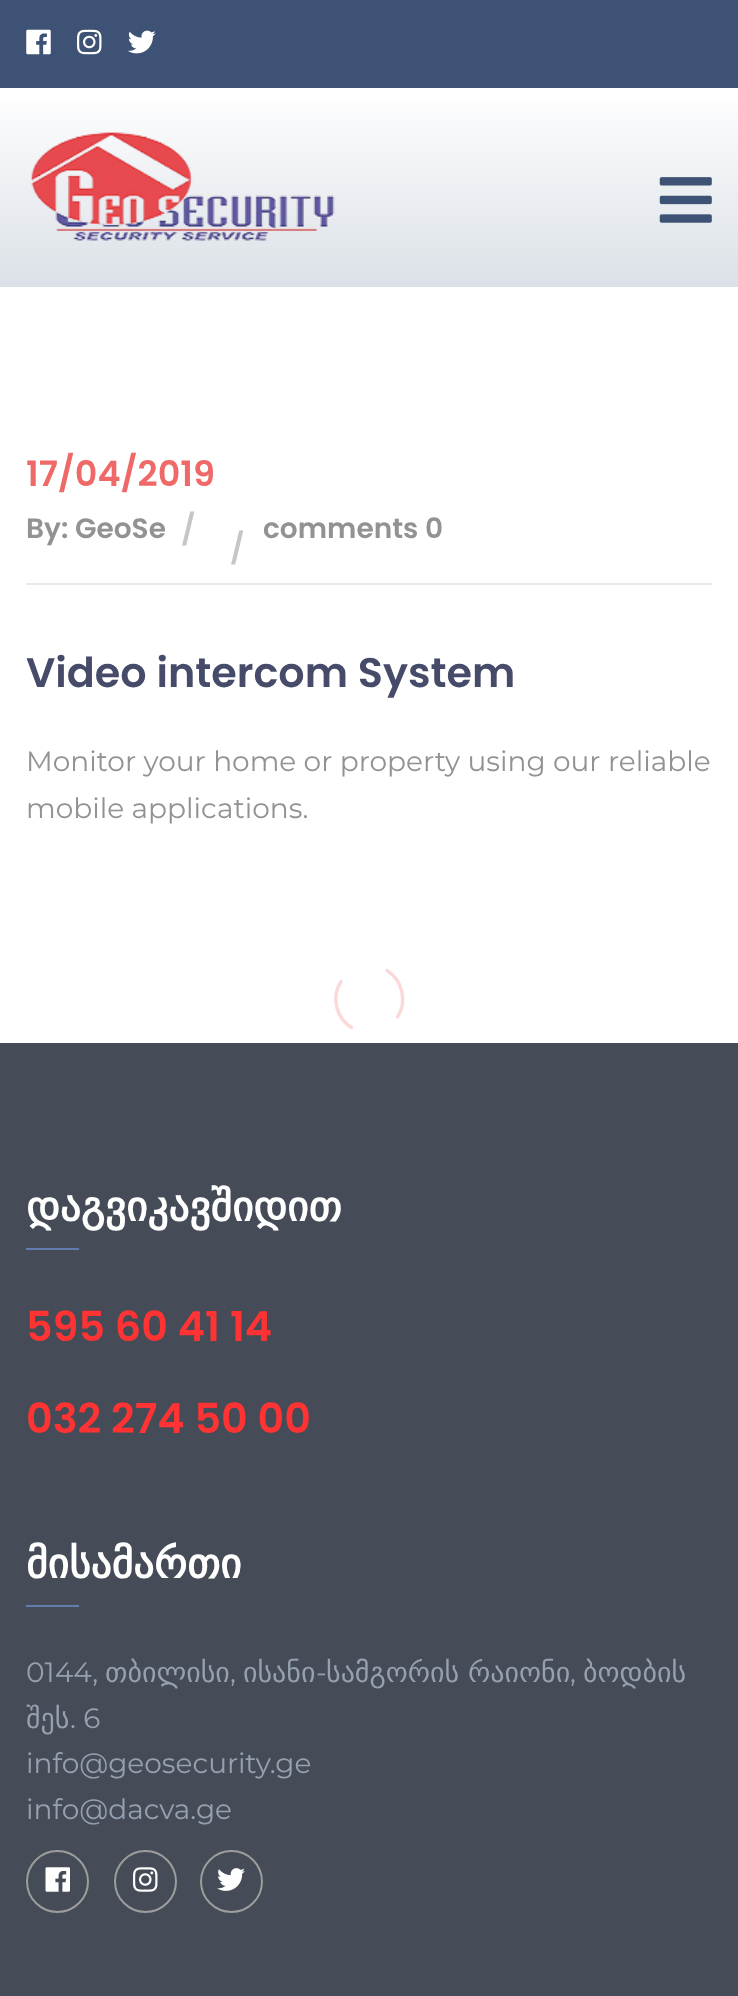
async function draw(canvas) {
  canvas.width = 738;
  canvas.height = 1996;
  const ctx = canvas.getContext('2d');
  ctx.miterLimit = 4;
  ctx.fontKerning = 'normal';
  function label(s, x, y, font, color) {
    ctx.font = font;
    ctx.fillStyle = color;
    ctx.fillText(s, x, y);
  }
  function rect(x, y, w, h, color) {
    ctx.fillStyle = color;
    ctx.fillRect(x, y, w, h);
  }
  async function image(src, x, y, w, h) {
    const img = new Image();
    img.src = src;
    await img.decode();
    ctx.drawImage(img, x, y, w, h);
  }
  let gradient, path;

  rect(0, 0, 738, 1996, '#fff');
  rect(0, 0, 738, 88, '#3e5275');
  await image('assets/img1.png', 26, 29, 25, 26);
  await image('assets/img2.png', 77, 29, 25, 26);
  await image('assets/img3.png', 128, 30, 28, 24);
  gradient = ctx.createLinearGradient(369, 87, 369, 287);
  gradient.addColorStop(0, '#fff');
  gradient.addColorStop(1, '#dbe1e7');
  ctx.fillStyle = gradient;
  ctx.fillRect(0, 101, 738, 186);
  await image('assets/img4.png', 30, 132, 305, 109);
  await image('assets/img5.png', 659, 177, 53, 46);
  rect(26, 583, 686, 2, '#e9e9e9');
  label('17/04/2019', 26, 486, '600 35px Poppins', '#ef6969');
  label('By: GeoSe', 26, 538, '600 28px Poppins', '#929292');
  label('/', 181, 540, '600 30px Poppins', '#c6c6c6');
  label('/', 230, 559, '600 30px Poppins', '#c6c6c6');
  label('comments 0', 263, 538, '600 28px Poppins', '#929292');
  label('Video intercom System', 26, 687, '600 41.3px Poppins', '#464b69');
  label('Monitor your home or property using our reliable', 26, 771, '28px Montserrat', '#929292');
  label('mobile applications.', 26, 818, '28px Montserrat', '#929292');
  path = new Path2D('M387 970.5C402.5 980.5 407.5 1001.5 397.5 1017M351.5 1027.5C336 1018 331 997 341 981.5');
  ctx.strokeStyle = '#fbd9d9';
  ctx.lineWidth = 3.4;
  ctx.lineCap = 'round';
  ctx.stroke(path);
  rect(0, 1043, 738, 953, '#454c57');
  label('დაგვიკავშიდით', 26, 1221, 'bold 41.3px DejaVu Sans', '#fff');
  rect(26, 1248, 53, 2, '#617db0');
  label('595 60 41 14', 26, 1341, '600 41.3px Poppins', '#f33');
  label('032 274 50 00', 26, 1433, '600 41.3px Poppins', '#f33');
  label('მისამართი', 26, 1578, 'bold 41.3px DejaVu Sans', '#fff');
  rect(26, 1605, 53, 2, '#617db0');
  label('0144,', 26, 1682, '28px Montserrat', '#95a0b1');
  label('თბილისი', 105, 1682, '28px DejaVu Sans', '#95a0b1');
  label('ისანი', 243, 1682, '28px DejaVu Sans', '#95a0b1');
  label('-', 316, 1682, '28px Montserrat', '#95a0b1');
  label('სამგორის რაიონი', 326, 1682, '28px DejaVu Sans', '#95a0b1');
  label('ბოდბის', 583, 1682, '28px DejaVu Sans', '#95a0b1');
  label(',', 230, 1682, '28px Montserrat', '#95a0b1');
  label(',', 570, 1682, '28px Montserrat', '#95a0b1');
  label('შეს', 26, 1728, '28px DejaVu Sans', '#95a0b1');
  label('. 6', 70, 1728, '28px Montserrat', '#95a0b1');
  label('info@geosecurity.ge', 26, 1773, '28px Montserrat', '#95a0b1');
  label('info@dacva.ge', 26, 1819, '28px Montserrat', '#95a0b1');
  ctx.beginPath();
  ctx.arc(57.5, 1881.5, 30.5, 0, 2 * Math.PI);
  ctx.strokeStyle = '#9d9d9d';
  ctx.lineWidth = 2;
  ctx.stroke();
  await image('assets/img6.png', 45, 1867, 25, 25);
  ctx.beginPath();
  ctx.arc(145.5, 1881.5, 30.5, 0, 2 * Math.PI);
  ctx.stroke();
  await image('assets/img7.png', 133, 1867, 25, 25);
  ctx.beginPath();
  ctx.arc(231.5, 1881.5, 30.5, 0, 2 * Math.PI);
  ctx.stroke();
  await image('assets/img8.png', 217, 1868, 28, 23);
}

draw(document.querySelector('canvas'));
